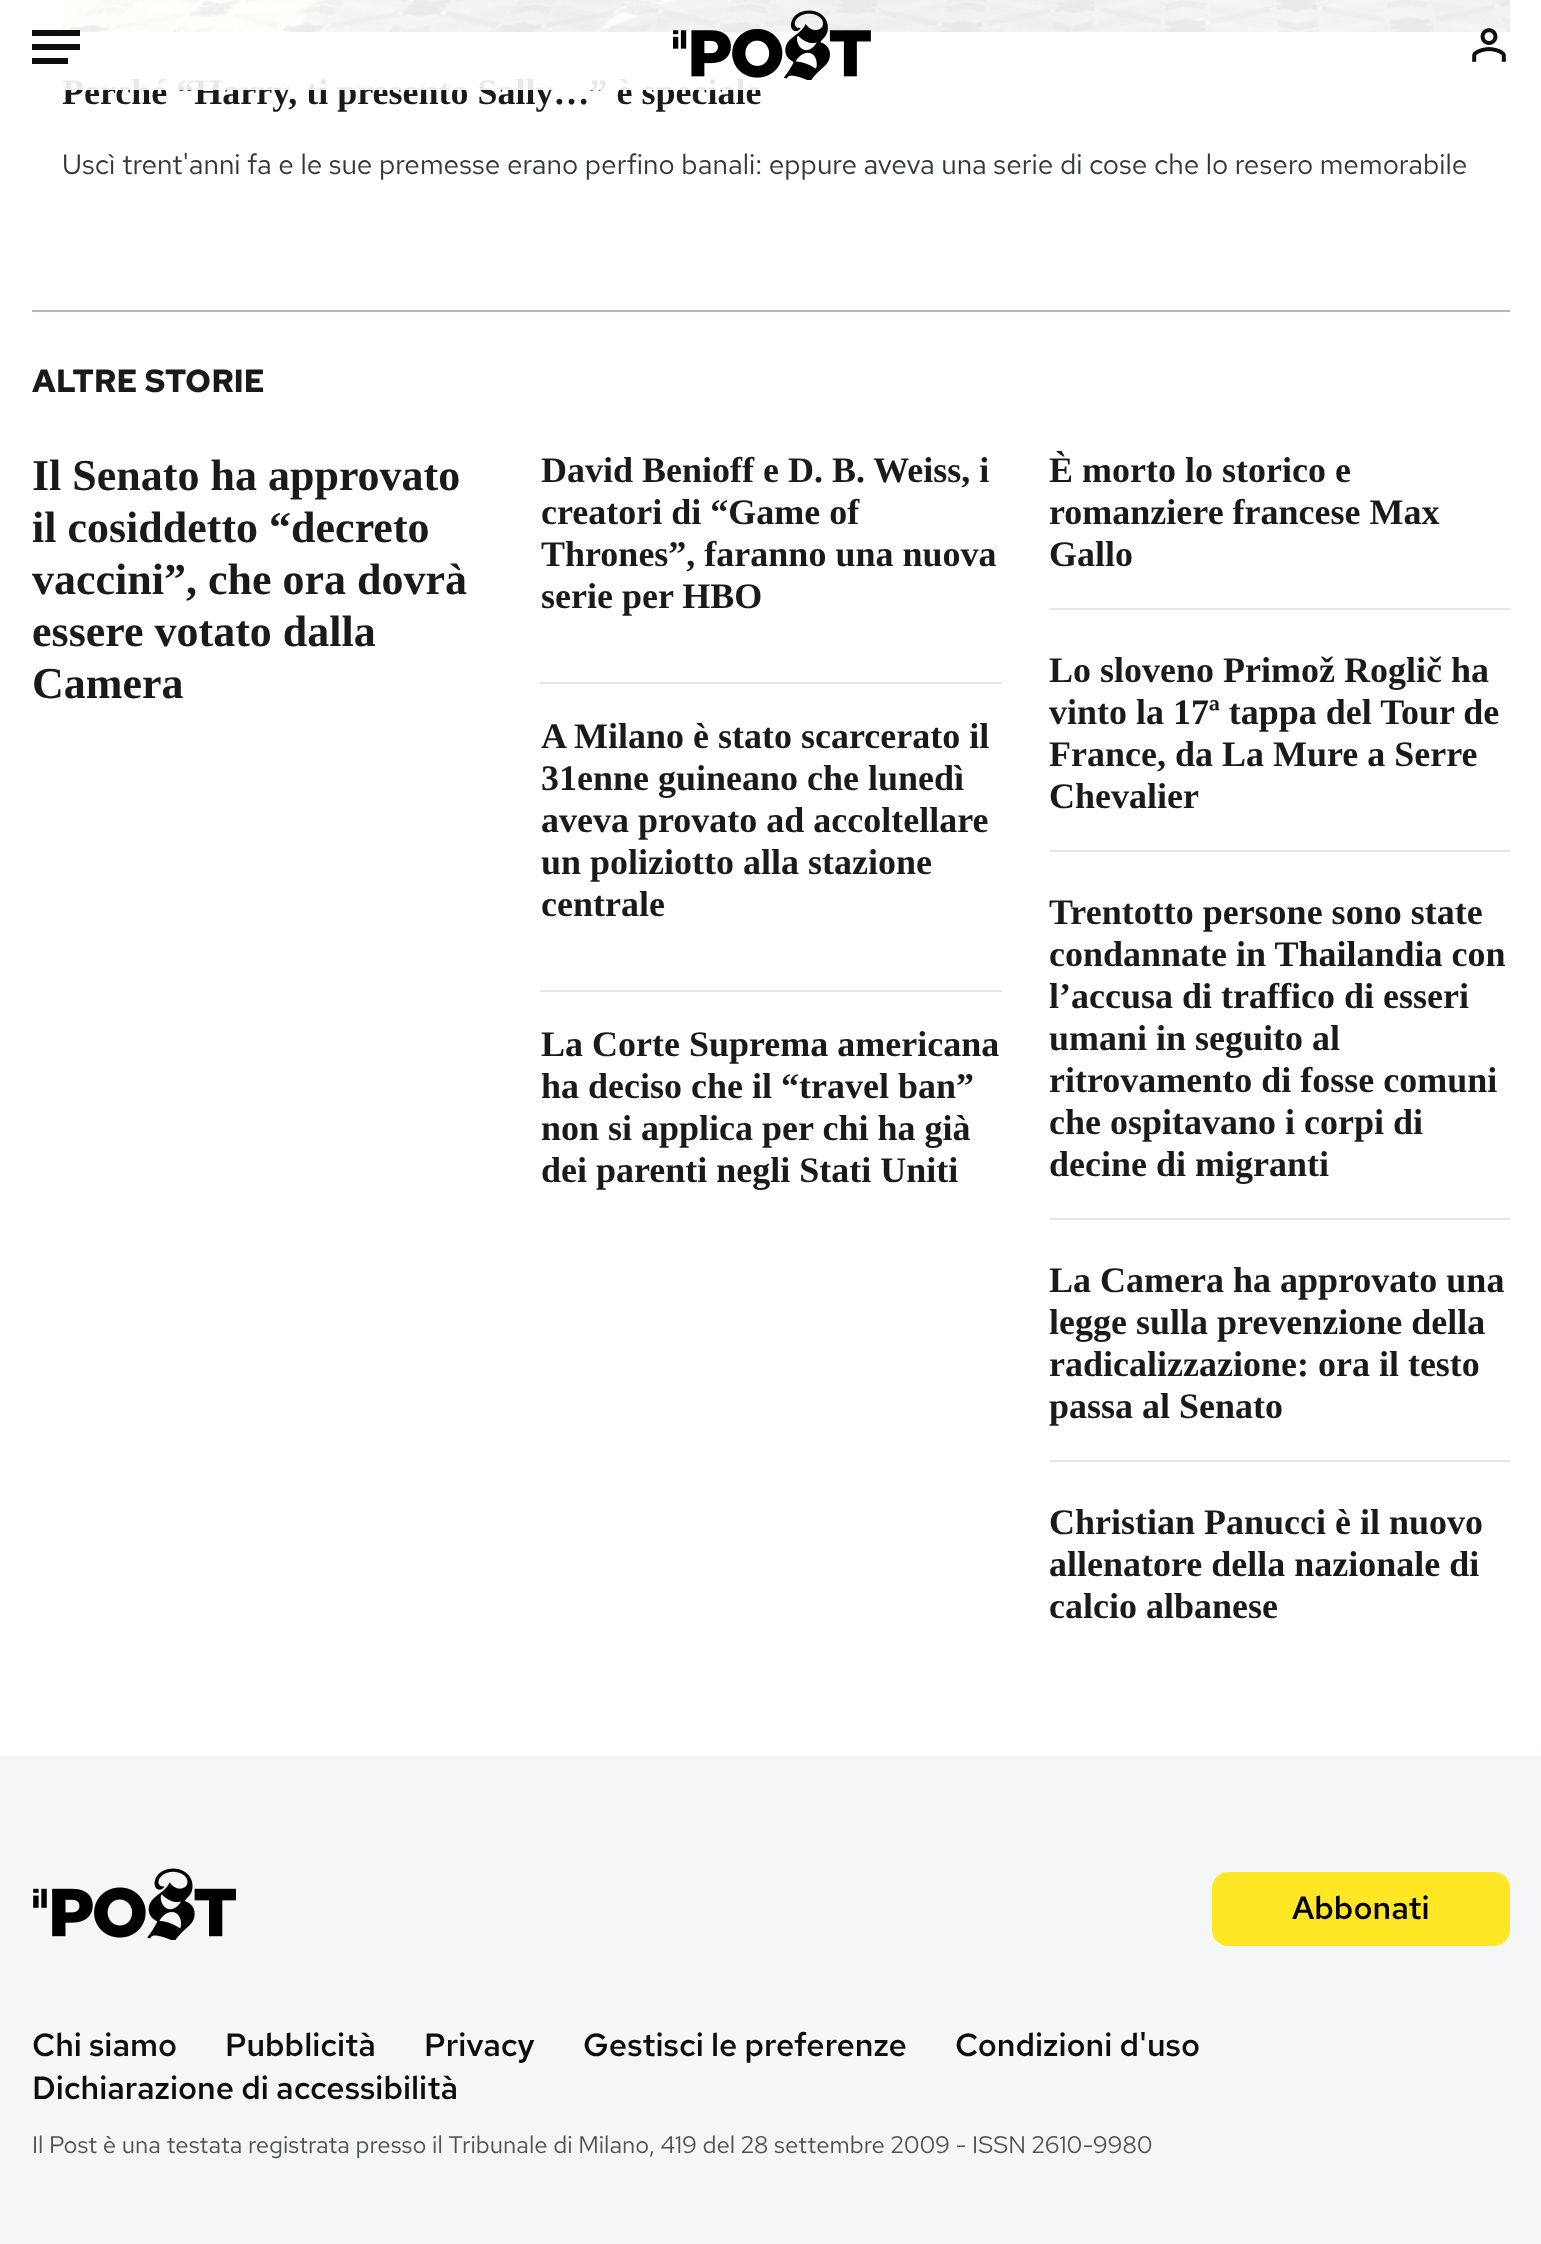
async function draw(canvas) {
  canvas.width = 1541;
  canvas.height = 2244;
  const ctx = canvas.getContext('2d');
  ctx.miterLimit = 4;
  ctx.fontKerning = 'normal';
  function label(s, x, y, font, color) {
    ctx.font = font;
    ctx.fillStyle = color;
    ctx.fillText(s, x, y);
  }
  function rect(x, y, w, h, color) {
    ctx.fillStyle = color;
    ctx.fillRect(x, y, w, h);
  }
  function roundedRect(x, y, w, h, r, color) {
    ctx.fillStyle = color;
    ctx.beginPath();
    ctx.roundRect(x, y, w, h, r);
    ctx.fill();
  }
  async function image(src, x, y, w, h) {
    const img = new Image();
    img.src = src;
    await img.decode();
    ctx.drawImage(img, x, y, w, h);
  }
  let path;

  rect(0, 0, 1541, 2244, '#fff');
  await image('assets/img3.png', 62, 0, 1448, 32);
  label('Perché “Harry, ti presento Sally…” è speciale', 62, 104, 'bold 36px Liberation Serif', '#191b1b');
  rect(62, 0, 1448, 90, '#ffffffe6');
  ctx.fillStyle = '#0c0d0e';
  path = new Path2D('M80 44V50H32V44ZM68 58V64H32V58ZM80 30V36H32V30Z');
  ctx.fill(path);
  await image('assets/img1.png', 673, 10, 198, 70);
  await image('assets/img2.png', 1472, 28, 34, 34);
  label('Uscì trent\'anni fa e le sue premesse erano perfino banali: eppure aveva una serie di cose che lo resero memorabile', 62, 174, '28px Red Hat Text', '#323839');
  rect(32, 310, 1478, 2, '#afb8ba');
  label('ALTRE STORIE', 32, 392, 'bold 32px Red Hat Text', '#191b1b');
  label('Il Senato ha approvato', 32, 490, 'bold 44px Liberation Serif', '#191b1b');
  label('il cosiddetto “decreto', 32, 542, 'bold 44px Liberation Serif', '#191b1b');
  label('vaccini”, che ora dovrà', 32, 594, 'bold 44px Liberation Serif', '#191b1b');
  label('essere votato dalla', 32, 646, 'bold 44px Liberation Serif', '#191b1b');
  label('Camera', 32, 698, 'bold 44px Liberation Serif', '#191b1b');
  rect(540, 682, 462, 2, '#e3e7e7');
  label('David Benioff e D. B. Weiss, i', 541, 482, 'bold 36px Liberation Serif', '#191b1b');
  label('creatori di “Game of', 541, 524, 'bold 36px Liberation Serif', '#191b1b');
  label('Thrones”, faranno una nuova', 541, 566, 'bold 36px Liberation Serif', '#191b1b');
  label('serie per HBO', 541, 608, 'bold 36px Liberation Serif', '#191b1b');
  rect(540, 990, 462, 2, '#e3e7e7');
  label('A Milano è stato scarcerato il', 541, 748, 'bold 36px Liberation Serif', '#191b1b');
  label('31enne guineano che lunedì', 541, 790, 'bold 36px Liberation Serif', '#191b1b');
  label('aveva provato ad accoltellare', 541, 832, 'bold 36px Liberation Serif', '#191b1b');
  label('un poliziotto alla stazione', 541, 874, 'bold 36px Liberation Serif', '#191b1b');
  label('centrale', 541, 916, 'bold 36px Liberation Serif', '#191b1b');
  label('La Corte Suprema americana', 541, 1056, 'bold 36px Liberation Serif', '#191b1b');
  label('ha deciso che il “travel ban”', 541, 1098, 'bold 36px Liberation Serif', '#191b1b');
  label('non si applica per chi ha già', 541, 1140, 'bold 36px Liberation Serif', '#191b1b');
  label('dei parenti negli Stati Uniti', 541, 1182, 'bold 36px Liberation Serif', '#191b1b');
  rect(1050, 608, 460, 2, '#e3e7e7');
  label('È morto lo storico e', 1049, 482, 'bold 36px Liberation Serif', '#191b1b');
  label('romanziere francese Max', 1049, 524, 'bold 36px Liberation Serif', '#191b1b');
  label('Gallo', 1049, 566, 'bold 36px Liberation Serif', '#191b1b');
  rect(1050, 850, 460, 2, '#e3e7e7');
  label('Lo sloveno Primož Roglič ha', 1049, 682, 'bold 36px Liberation Serif', '#191b1b');
  label('vinto la 17ª tappa del Tour de', 1049, 724, 'bold 36px Liberation Serif', '#191b1b');
  label('France, da La Mure a Serre', 1049, 766, 'bold 36px Liberation Serif', '#191b1b');
  label('Chevalier', 1049, 808, 'bold 36px Liberation Serif', '#191b1b');
  rect(1050, 1218, 460, 2, '#e3e7e7');
  label('Trentotto persone sono state', 1049, 924, 'bold 36px Liberation Serif', '#191b1b');
  label('condannate in Thailandia con', 1049, 966, 'bold 36px Liberation Serif', '#191b1b');
  label('l’accusa di traffico di esseri', 1049, 1008, 'bold 36px Liberation Serif', '#191b1b');
  label('umani in seguito al', 1049, 1050, 'bold 36px Liberation Serif', '#191b1b');
  label('ritrovamento di fosse comuni', 1049, 1092, 'bold 36px Liberation Serif', '#191b1b');
  label('che ospitavano i corpi di', 1049, 1134, 'bold 36px Liberation Serif', '#191b1b');
  label('decine di migranti', 1049, 1176, 'bold 36px Liberation Serif', '#191b1b');
  rect(1050, 1460, 460, 2, '#e3e7e7');
  label('La Camera ha approvato una', 1049, 1292, 'bold 36px Liberation Serif', '#191b1b');
  label('legge sulla prevenzione della', 1049, 1334, 'bold 36px Liberation Serif', '#191b1b');
  label('radicalizzazione: ora il testo', 1049, 1376, 'bold 36px Liberation Serif', '#191b1b');
  label('passa al Senato', 1049, 1418, 'bold 36px Liberation Serif', '#191b1b');
  label('Christian Panucci è il nuovo', 1049, 1534, 'bold 36px Liberation Serif', '#191b1b');
  label('allenatore della nazionale di', 1049, 1576, 'bold 36px Liberation Serif', '#191b1b');
  label('calcio albanese', 1049, 1618, 'bold 36px Liberation Serif', '#191b1b');
  rect(0, 1756, 1541, 488, '#f5f6f7');
  await image('assets/img4.png', 33, 1868, 203, 72);
  roundedRect(1212, 1872, 298, 74, 16, '#ffe726');
  label('Abbonati', 1292, 1919, '600 32px Red Hat Text', '#000');
  label('Chi siamo', 32, 2056, '600 32px Red Hat Text', '#0c0d0e');
  label('Pubblicità', 225, 2056, '600 32px Red Hat Text', '#0c0d0e');
  label('Privacy', 424, 2056, '600 32px Red Hat Text', '#0c0d0e');
  label('Gestisci le preferenze', 583, 2056, '600 32px Red Hat Text', '#0c0d0e');
  label('Condizioni d\'uso', 955, 2056, '600 32px Red Hat Text', '#0c0d0e');
  label('Dichiarazione di accessibilità', 32, 2099, '600 32px Red Hat Text', '#0c0d0e');
  label('Il Post è una testata registrata presso il Tribunale di Milano, 419 del 28 settembre 2009 - ISSN 2610-9980', 32, 2153, '24px Red Hat Text', '#4b5254');
}

draw(document.querySelector('canvas'));
